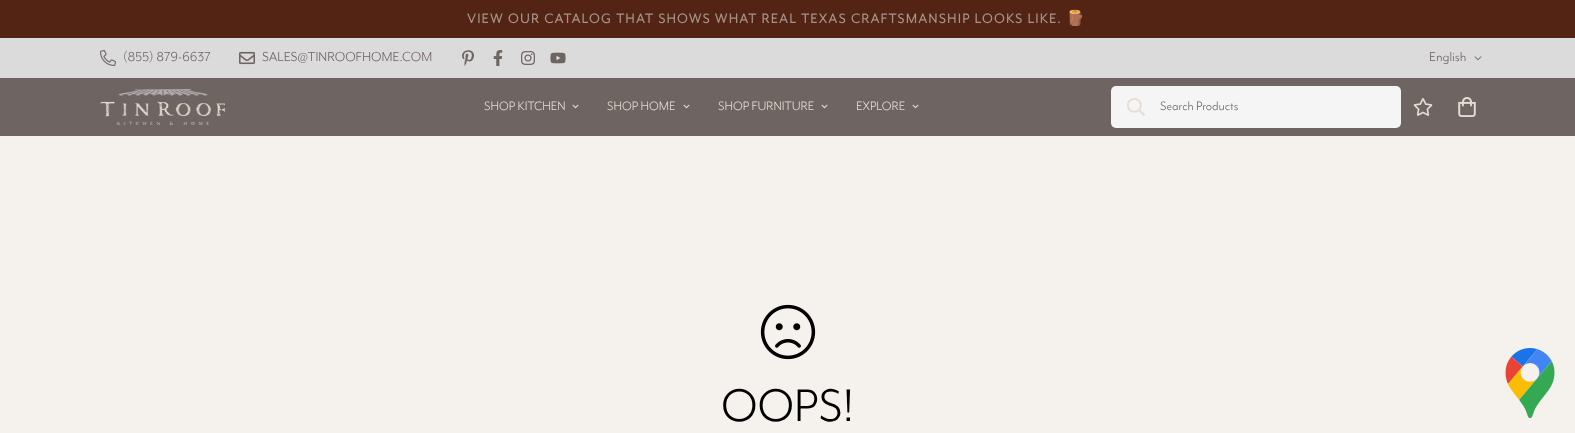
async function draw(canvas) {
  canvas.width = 1575;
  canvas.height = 433;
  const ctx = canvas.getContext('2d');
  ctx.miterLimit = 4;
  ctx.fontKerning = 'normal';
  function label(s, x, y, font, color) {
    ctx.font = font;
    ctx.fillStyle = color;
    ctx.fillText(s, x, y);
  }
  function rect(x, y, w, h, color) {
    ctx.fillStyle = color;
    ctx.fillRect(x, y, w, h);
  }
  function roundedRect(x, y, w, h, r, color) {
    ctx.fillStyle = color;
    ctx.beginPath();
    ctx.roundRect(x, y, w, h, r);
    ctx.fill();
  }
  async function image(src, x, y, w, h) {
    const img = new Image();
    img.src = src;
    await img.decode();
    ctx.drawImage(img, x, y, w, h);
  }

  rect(0, 0, 1575, 433, '#532414');
  ctx.letterSpacing = '1.5px';
  label('VIEW OUR CATALOG THAT SHOWS WHAT REAL TEXAS CRAFTSMANSHIP LOOKS LIKE.', 467, 23, 'bold 15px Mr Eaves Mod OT', '#a5928b');
  label('🪵', 1066, 23, 'bold 15px Noto Color Emoji', '#a5928b');
  rect(0, 38, 1575, 40, '#dcdbdb');
  await image('assets/img1.png', 100, 50, 16, 16);
  ctx.letterSpacing = '0px';
  label('(855) 879-6637', 123, 61, '15px Mr Eaves Mod OT', '#6e6563');
  await image('assets/img2.png', 239, 51, 16, 14);
  label('SALES@TINROOFHOME.COM', 262, 61, '15px Mr Eaves Mod OT', '#6e6563');
  await image('assets/img3.png', 462, 50, 12, 16);
  await image('assets/img4.png', 493, 50, 10, 16);
  await image('assets/img5.png', 521, 51, 14, 14);
  await image('assets/img6.png', 550, 52, 16, 12);
  label('English', 1429, 61, '15px Mr Eaves Mod OT', '#6e6563');
  await image('assets/img7.png', 1474, 56, 8, 4);
  rect(0, 78, 1575, 58, '#6e6563');
  await image('assets/img8.png', 100, 89, 125, 36);
  label('SHOP KITCHEN', 484, 110, '14px Mr Eaves Mod OT', '#e5dbd1');
  await image('assets/img9.png', 572, 104, 7, 5);
  label('SHOP HOME', 607, 110, '14px Mr Eaves Mod OT', '#e5dbd1');
  await image('assets/img9.png', 683, 104, 7, 5);
  label('SHOP FURNITURE', 718, 110, '14px Mr Eaves Mod OT', '#e5dbd1');
  await image('assets/img9.png', 821, 104, 7, 5);
  label('EXPLORE', 856, 110, '14px Mr Eaves Mod OT', '#e5dbd1');
  await image('assets/img9.png', 912, 104, 7, 5);
  roundedRect(1111, 86, 290, 42, 5, '#f5f5f5');
  await image('assets/img10.png', 1127, 98, 18, 18);
  label('Search Products', 1160, 110, '14px Mr Eaves Mod OT', '#666');
  await image('assets/img11.png', 1413, 98, 20, 18);
  await image('assets/img12.png', 1458, 97, 18, 20);
  rect(0, 136, 1575, 297, '#f5f1ed');
  await image('assets/img13.png', 760, 304, 56, 56);
  label('OOPS!', 721, 421, '52.5px Mr Eaves Mod OT', '#000');
  await image('assets/img14.png', 1505, 348, 50, 70);
}

draw(document.querySelector('canvas'));
